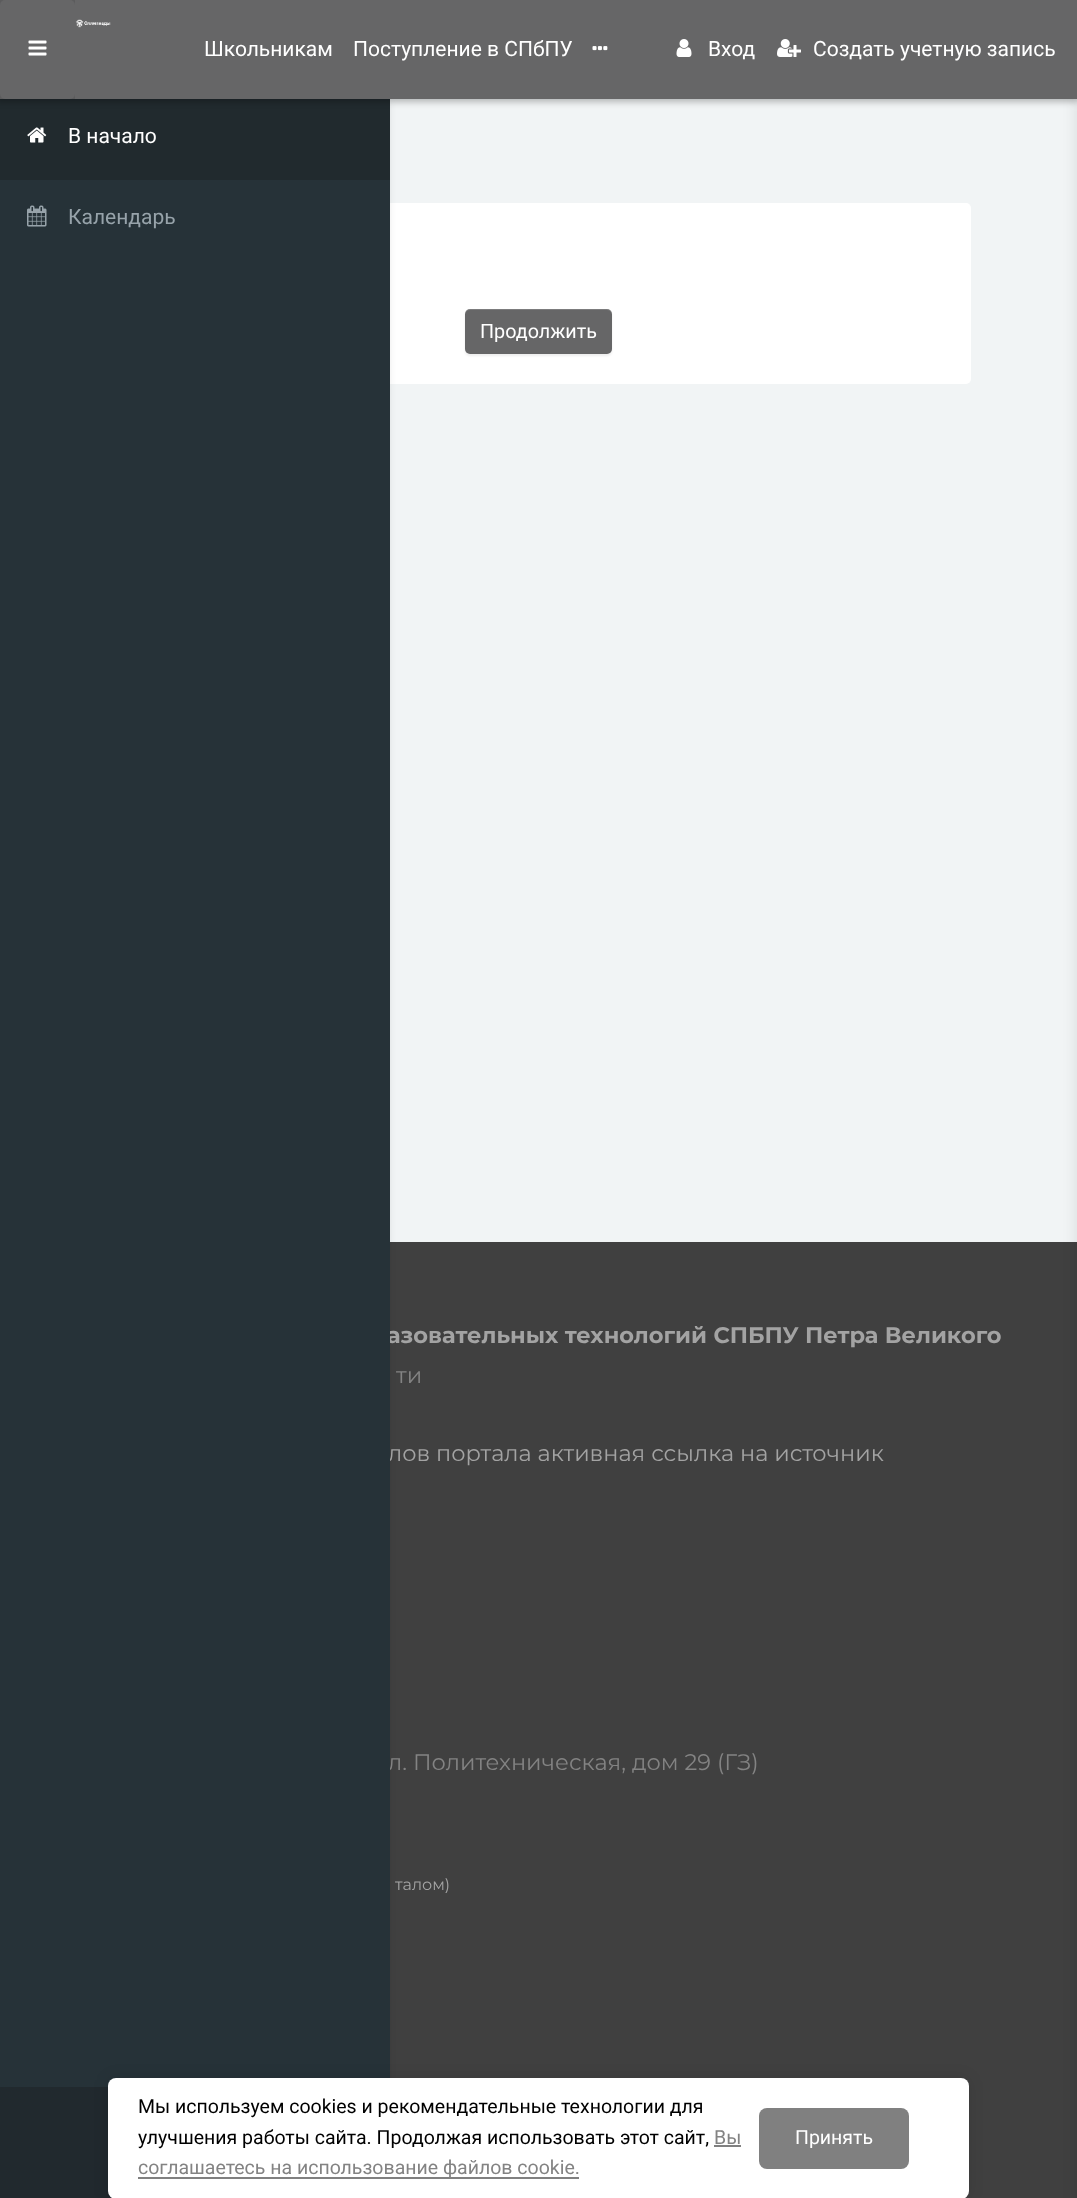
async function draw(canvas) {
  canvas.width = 1077;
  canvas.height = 2198;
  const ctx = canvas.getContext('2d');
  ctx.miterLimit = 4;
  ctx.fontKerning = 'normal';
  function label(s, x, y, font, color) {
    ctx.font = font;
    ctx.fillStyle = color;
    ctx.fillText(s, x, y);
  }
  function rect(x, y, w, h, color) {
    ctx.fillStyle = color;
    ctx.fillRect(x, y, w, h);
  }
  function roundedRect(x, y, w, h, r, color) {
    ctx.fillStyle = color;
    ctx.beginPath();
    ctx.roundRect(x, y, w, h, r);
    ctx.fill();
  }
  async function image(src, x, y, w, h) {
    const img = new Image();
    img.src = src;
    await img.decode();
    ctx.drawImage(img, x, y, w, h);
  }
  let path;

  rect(0, 0, 1077, 2198, '#f1f4f5');
  roundedRect(107, 203, 864, 181, 5, '#fff');
  rect(390, 1242, 687, 956, '#404040');
  ctx.fillStyle = '#00000014';
  ctx.filter = 'blur(3px)';
  ctx.beginPath();
  ctx.rect(0, 102, 390, 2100);
  ctx.fill();
  ctx.filter = 'none';
  rect(0, 99, 390, 81, '#212a2e');
  ctx.fillStyle = '#00000040';
  ctx.filter = 'blur(3px)';
  ctx.beginPath();
  ctx.rect(-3, -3, 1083, 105);
  ctx.fill();
  ctx.filter = 'none';
  ctx.fillStyle = '#0000001a';
  ctx.filter = 'blur(7.5px)';
  ctx.beginPath();
  ctx.rect(1077, 99, 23, 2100);
  ctx.fill();
  ctx.filter = 'none';
  rect(75, 0, 1002, 99, '#666667');
  rect(0, 0, 75, 99, '#5c5c5d');
  roundedRect(0, 0, 75, 99, 5, '#666667');
  await image('assets/img1.png', 28, 40, 19, 16);
  await image('assets/img2.png', 75, 19, 36, 9);
  label('Школьникам', 204, 56, '21px Roboto', '#fff');
  label('Поступление в СПбПУ', 353, 56, '21px Roboto', '#fff');
  await image('assets/img3.png', 592, 46, 16, 5);
  await image('assets/img4.png', 676, 39, 16, 18);
  label('Вход', 708, 56, '21px Roboto', '#fff');
  await image('assets/img5.png', 777, 39, 24, 18);
  label('Создать учетную запись', 813, 56, '21px Roboto', '#fff');
  label('азовательных технологий СПБПУ Петра Великого', 387, 1343, 'bold 22.5px Montserrat', '#a3a3a3');
  label('лов портала активная ссылка на источник', 388, 1461, '22.5px Montserrat', '#a3a3a3');
  label('л. Политехническая, дом 29 (ГЗ)', 388, 1770, '22.5px Montserrat', '#838383');
  rect(0, 180, 390, 1907, '#263238');
  await image('assets/img6.png', 27, 127, 20, 16);
  label('В начало', 68, 143, '21px Roboto', '#fff');
  await image('assets/img7.png', 27, 205, 20, 22);
  label('Календарь', 68, 224, '21px Roboto', '#97a3aa');
  rect(0, 2087, 113, 111, '#21292e');
  ctx.fillStyle = '#00000012';
  ctx.filter = 'blur(1px)';
  ctx.beginPath();
  ctx.roundRect(465, 311, 147, 45, 5);
  ctx.fill();
  ctx.filter = 'none';
  roundedRect(465, 309, 147, 45, 5, '#666667');
  ctx.fillStyle = '#ffffff26';
  path = new Path2D('M470 310H607C610 310 612 313 612 315V314C612 311 610 309 607 309H470C467 309 465 311 465 314V315C465 313 467 310 470 310Z');
  ctx.fill(path);
  label('Продолжить', 480, 338, '19.75px Roboto', '#fff');
  label('ти', 396, 1383, '22.5px Montserrat', '#838383');
  label('талом)', 395, 1890, '16px Montserrat', '#a3a3a3');
  ctx.fillStyle = '#0000001a';
  ctx.filter = 'blur(7.5px)';
  ctx.beginPath();
  ctx.roundRect(108, 2078, 861, 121, 8);
  ctx.fill();
  ctx.filter = 'none';
  roundedRect(108, 2078, 861, 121, 8, '#fff');
  label('Мы используем cookies и рекомендательные технологии для', 138, 2113, '19.5px Roboto', '#000');
  label('улучшения работы сайта. Продолжая использовать этот сайт,', 138, 2144, '19.5px Roboto', '#000');
  label('Вы', 714, 2144, '19.5px Roboto', '#838383');
  rect(714, 2145, 27, 2, '#808080');
  rect(138, 2177, 441, 2, '#808080');
  label('соглашаетесь на использование файлов cookie.', 138, 2174, '19.5px Roboto', '#838383');
  roundedRect(759, 2108, 150, 61, 8, '#808080');
  label('Принять', 795, 2144, '19.5px Roboto', '#fff');
}

draw(document.querySelector('canvas'));
